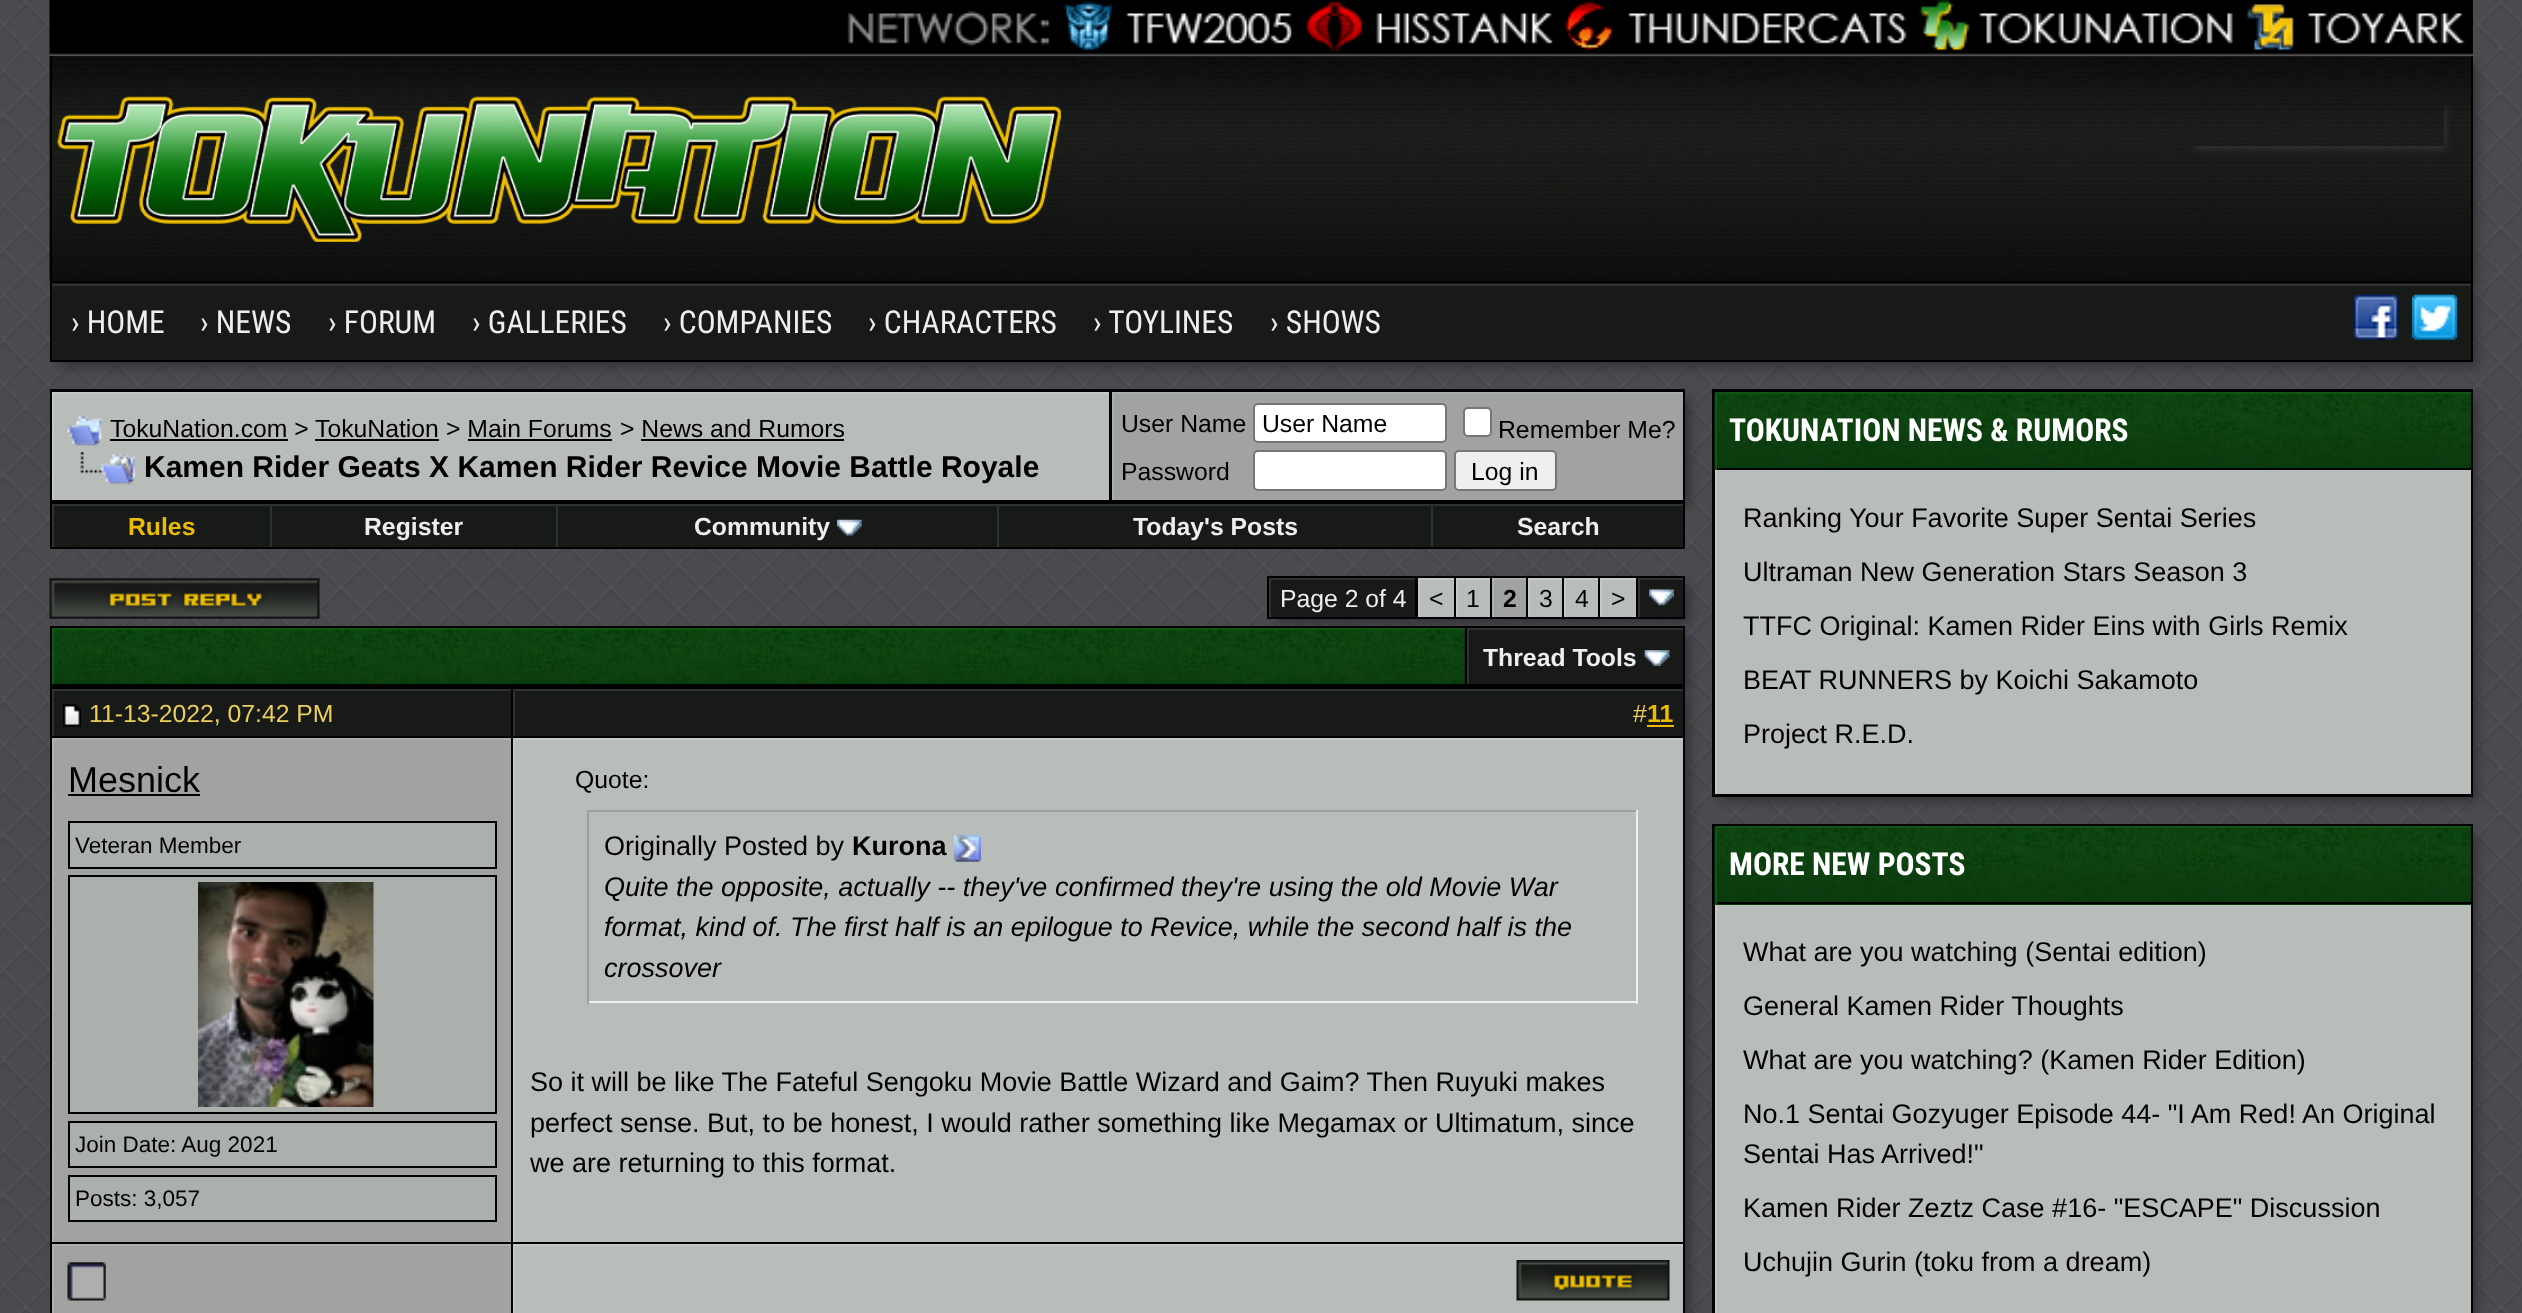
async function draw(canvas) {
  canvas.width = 2522;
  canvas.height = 1313;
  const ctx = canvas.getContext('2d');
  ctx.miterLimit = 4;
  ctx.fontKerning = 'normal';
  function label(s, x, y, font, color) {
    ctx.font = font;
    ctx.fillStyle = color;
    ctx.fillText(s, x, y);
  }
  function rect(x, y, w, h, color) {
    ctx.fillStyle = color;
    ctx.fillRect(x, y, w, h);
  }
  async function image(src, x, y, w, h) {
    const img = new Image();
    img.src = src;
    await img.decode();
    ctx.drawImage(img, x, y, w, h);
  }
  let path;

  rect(0, 0, 2522, 1313, '#fff');
  await image('assets/img1.png', 0, 0, 2522, 1313);
  await image('assets/img2.png', 49, 0, 2424, 56);
  await image('assets/img3.png', 847, 0, 1626, 56);
  await image('assets/img4.png', 1046, 1, 246, 49);
  await image('assets/img5.png', 1291, 1, 262, 52);
  await image('assets/img6.png', 1552, 1, 355, 49);
  ctx.fillStyle = '#323236';
  ctx.filter = 'blur(5.5px)';
  ctx.beginPath();
  ctx.rect(59, 65, 2418, 221);
  ctx.fill();
  ctx.filter = 'none';
  await image('assets/img7.png', 49, 56, 2422, 226);
  rect(2471, 56, 2, 225, '#000');
  rect(50, 56, 2, 225, '#000');
  await image('assets/img8.png', 52, 56, 1024, 189);
  ctx.save();
  path = new Path2D('M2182 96H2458V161H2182ZM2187 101H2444V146H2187Z');
  ctx.clip(path, 'evenodd');
  ctx.fillStyle = '#333';
  ctx.filter = 'blur(3.5px)';
  ctx.beginPath();
  ctx.rect(2194, 108, 252, 41);
  ctx.fill();
  ctx.filter = 'none';
  ctx.restore();
  ctx.fillStyle = '#323236';
  ctx.filter = 'blur(5.5px)';
  ctx.beginPath();
  ctx.rect(59, 290, 2418, 77);
  ctx.fill();
  ctx.filter = 'none';
  rect(52, 283, 2419, 77, '#181a18');
  rect(52, 284, 2419, 2, '#2f332f');
  ctx.strokeStyle = '#000';
  ctx.lineWidth = 2;
  ctx.strokeRect(51, 282, 2421, 79);
  label('› HOME', 71, 333, '31.5px Roboto Condensed', '#eee');
  label('› NEWS', 200, 333, '31.5px Roboto Condensed', '#eee');
  label('› FORUM', 328, 333, '31.5px Roboto Condensed', '#eee');
  label('› GALLERIES', 472, 333, '31.5px Roboto Condensed', '#eee');
  label('› COMPANIES', 663, 333, '31.5px Roboto Condensed', '#eee');
  label('› CHARACTERS', 868, 333, '31.5px Roboto Condensed', '#eee');
  label('› TOYLINES', 1093, 333, '31.5px Roboto Condensed', '#eee');
  label('› SHOWS', 1270, 333, '31.5px Roboto Condensed', '#eee');
  await image('assets/img9.png', 2353, 294, 46, 46);
  await image('assets/img10.png', 2412, 294, 45, 46);
  ctx.fillStyle = '#323236';
  ctx.filter = 'blur(5.5px)';
  ctx.beginPath();
  ctx.rect(59, 398, 1631, 108);
  ctx.fill();
  ctx.filter = 'none';
  rect(50, 389, 1635, 160, '#000');
  rect(54, 394, 1055, 106, '#b9bdb9');
  rect(52, 392, 1057, 2, '#c5c9c6');
  rect(52, 392, 2, 108, '#c5c9c6');
  await image('assets/img11.png', 67, 415, 35, 31);
  label('TokuNation.com >', 110, 437, '24.75px Liberation Sans', '#000');
  rect(110, 439, 178, 2, '#000');
  label('TokuNation', 315, 437, '24.75px Liberation Sans', '#000');
  rect(315, 439, 124, 2, '#000');
  label('> Main Forums', 446, 437, '24.75px Liberation Sans', '#000');
  rect(468, 439, 144, 2, '#000');
  label('> News and Rumors', 620, 437, '24.75px Liberation Sans', '#000');
  rect(641, 439, 203, 2, '#000');
  await image('assets/img12.png', 80, 452, 55, 33);
  label('Kamen Rider Geats X Kamen Rider Revice Movie Battle Royale', 144, 477, 'bold 30px Liberation Sans', '#000');
  rect(1114, 394, 569, 106, '#a0a3a0');
  rect(1112, 392, 571, 2, '#acb0ad');
  rect(1112, 392, 2, 108, '#acb0ad');
  label('User Name', 1121, 432, '24.75px Liberation Sans', '#000');
  ctx.fillStyle = '#fff';
  ctx.beginPath();
  ctx.roundRect(1254, 404, 192, 38, 4);
  ctx.fill();
  ctx.strokeStyle = '#767676';
  ctx.stroke();
  label('User Name', 1262, 432, '24.75px Liberation Sans', '#000');
  ctx.fillStyle = '#fff';
  ctx.beginPath();
  ctx.roundRect(1464, 408, 27, 28, 4);
  ctx.fill();
  ctx.stroke();
  label('Remember Me?', 1498, 438, '24.75px Liberation Sans', '#000');
  label('Password', 1121, 480, '24.75px Liberation Sans', '#000');
  ctx.fillStyle = '#fff';
  ctx.beginPath();
  ctx.roundRect(1254, 451, 192, 39, 4);
  ctx.fill();
  ctx.stroke();
  ctx.fillStyle = '#efefef';
  ctx.beginPath();
  ctx.roundRect(1455, 451, 101, 39, 4);
  ctx.fill();
  ctx.stroke();
  label('Log in', 1471, 480, '24.75px Liberation Sans', '#000');
  rect(54, 506, 216, 41, '#181a18');
  rect(52, 504, 1631, 2, '#2f332f');
  rect(52, 504, 2, 43, '#2f332f');
  label('Rules', 128, 535, 'bold 24.75px Liberation Sans', '#ebbc00');
  rect(272, 506, 284, 41, '#181a18');
  rect(270, 504, 2, 43, '#2f332f');
  label('Register', 364, 535, 'bold 24.75px Liberation Sans', '#eee');
  rect(558, 506, 439, 41, '#181a18');
  rect(556, 504, 2, 43, '#2f332f');
  label('Community', 694, 535, 'bold 24.75px Liberation Sans', '#eee');
  await image('assets/img13.png', 837, 519, 25, 17);
  rect(999, 506, 432, 41, '#181a18');
  rect(997, 504, 2, 43, '#2f332f');
  label('Today\'s Posts', 1133, 535, 'bold 24.75px Liberation Sans', '#eee');
  rect(1433, 506, 250, 41, '#181a18');
  rect(1431, 504, 2, 43, '#2f332f');
  label('Search', 1517, 535, 'bold 24.75px Liberation Sans', '#eee');
  ctx.fillStyle = '#323236';
  ctx.filter = 'blur(5.5px)';
  ctx.beginPath();
  ctx.rect(1276, 585, 414, 38);
  ctx.fill();
  ctx.filter = 'none';
  rect(1267, 576, 418, 43, '#000');
  ctx.fillStyle = '#323236';
  ctx.filter = 'blur(5.5px)';
  ctx.beginPath();
  ctx.rect(59, 635, 1631, 56);
  ctx.fill();
  ctx.filter = 'none';
  await image('assets/img14.png', 49, 578, 271, 41);
  rect(1271, 580, 144, 37, '#181a18');
  rect(1269, 578, 146, 2, '#2f332f');
  rect(1269, 578, 2, 39, '#2f332f');
  label('Page 2 of 4', 1280, 607, '24.75px Liberation Sans', '#eee');
  rect(1420, 580, 34, 37, '#b9bdb9');
  rect(1418, 578, 36, 2, '#c5c9c6');
  rect(1418, 578, 2, 39, '#c5c9c6');
  label('<', 1429, 607, '24.75px Liberation Sans', '#000');
  rect(1458, 580, 32, 37, '#b9bdb9');
  rect(1456, 578, 34, 2, '#c5c9c6');
  rect(1456, 578, 2, 39, '#c5c9c6');
  label('1', 1466, 607, '24.75px Liberation Sans', '#000');
  rect(1494, 580, 32, 37, '#a0a3a0');
  rect(1492, 578, 34, 2, '#acb0ad');
  rect(1492, 578, 2, 39, '#acb0ad');
  label('2', 1503, 607, 'bold 24.75px Liberation Sans', '#000');
  rect(1530, 580, 32, 37, '#b9bdb9');
  rect(1528, 578, 34, 2, '#c5c9c6');
  rect(1528, 578, 2, 39, '#c5c9c6');
  label('3', 1539, 607, '24.75px Liberation Sans', '#000');
  rect(1566, 580, 32, 37, '#b9bdb9');
  rect(1564, 578, 34, 2, '#c5c9c6');
  rect(1564, 578, 2, 39, '#c5c9c6');
  label('4', 1575, 607, '24.75px Liberation Sans', '#000');
  rect(1602, 580, 34, 37, '#b9bdb9');
  rect(1600, 578, 36, 2, '#c5c9c6');
  rect(1600, 578, 2, 39, '#c5c9c6');
  label('>', 1611, 607, '24.75px Liberation Sans', '#000');
  rect(1640, 580, 43, 37, '#181a18');
  rect(1638, 578, 45, 2, '#2f332f');
  rect(1638, 578, 2, 39, '#2f332f');
  await image('assets/img15.png', 1649, 589, 25, 17);
  rect(50, 626, 1635, 60, '#000');
  await image('assets/img16.png', 51, 630, 1414, 54);
  rect(52, 628, 1413, 2, '#115414');
  rect(52, 628, 2, 56, '#115414');
  rect(1469, 630, 214, 54, '#181a18');
  rect(1467, 628, 216, 2, '#2f332f');
  rect(1467, 628, 2, 56, '#2f332f');
  label('Thread Tools', 1483, 666, 'bold 24.75px Liberation Sans', '#eee');
  await image('assets/img17.png', 1644, 650, 26, 16);
  ctx.fillStyle = '#323236';
  ctx.filter = 'blur(5.5px)';
  ctx.beginPath();
  ctx.rect(59, 695, 1631, 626);
  ctx.fill();
  ctx.filter = 'none';
  rect(50, 686, 1635, 627, '#000');
  rect(54, 691, 457, 45, '#181a18');
  rect(52, 689, 459, 2, '#2f332f');
  rect(52, 689, 2, 47, '#2f332f');
  await image('assets/img18.png', 63, 704, 18, 23);
  label('11-13-2022, 07:42 PM', 89, 722, '24.75px Liberation Sans', '#ebce5b');
  rect(515, 691, 1168, 45, '#181a18');
  rect(513, 689, 1170, 2, '#2f332f');
  rect(513, 689, 2, 47, '#2f332f');
  label('#', 1633, 722, '24.75px Liberation Sans', '#ebce5b');
  label('11', 1647, 722, 'bold 24.75px Liberation Sans', '#ebbc00');
  rect(1647, 725, 27, 2, '#ebbc00');
  rect(54, 740, 457, 502, '#a0a3a0');
  rect(52, 738, 459, 2, '#acb0ad');
  rect(52, 738, 2, 504, '#acb0ad');
  label('Mesnick', 68, 792, '36px Liberation Sans', '#000');
  rect(68, 794, 132, 2, '#000');
  ctx.fillStyle = '#acb0ac';
  ctx.beginPath();
  ctx.rect(69, 822, 427, 46);
  ctx.fill();
  ctx.strokeStyle = '#000';
  ctx.stroke();
  label('Veteran Member', 75, 853, '22.5px Liberation Sans', '#000');
  ctx.fillStyle = '#acb0ac';
  ctx.beginPath();
  ctx.rect(69, 876, 427, 237);
  ctx.fill();
  ctx.stroke();
  await image('assets/img19.png', 198, 882, 176, 225);
  ctx.beginPath();
  ctx.rect(69, 1122, 427, 45);
  ctx.fill();
  ctx.stroke();
  label('Join Date: Aug 2021', 75, 1152, '22.5px Liberation Sans', '#000');
  ctx.fillStyle = '#acb0ac';
  ctx.beginPath();
  ctx.rect(69, 1176, 427, 45);
  ctx.fill();
  ctx.stroke();
  label('Posts: 3,057', 75, 1206, '22.5px Liberation Sans', '#000');
  rect(515, 740, 1168, 502, '#b9bdb9');
  rect(513, 738, 1170, 2, '#c5c9c6');
  rect(513, 738, 2, 504, '#c5c9c6');
  label('Quote:', 575, 788, '24.75px Liberation Sans', '#000');
  rect(587, 810, 1051, 2, '#9f9f9f');
  rect(1636, 810, 2, 194, '#eee');
  rect(587, 1001, 1051, 2, '#eee');
  rect(587, 810, 2, 194, '#9f9f9f');
  label('Originally Posted by', 604, 855, '27px Liberation Sans', '#000');
  label('Kurona', 852, 855, 'bold 27px Liberation Sans', '#000');
  await image('assets/img20.png', 954, 834, 27, 28);
  label('Quite the opposite, actually -- they\'ve confirmed they\'re using the old Movie War', 604, 896, 'italic 27px Liberation Sans', '#000');
  label('format, kind of. The first half is an epilogue to Revice, while the second half is the', 604, 936, 'italic 27px Liberation Sans', '#000');
  label('crossover', 604, 977, 'italic 27px Liberation Sans', '#000');
  label('So it will be like The Fateful Sengoku Movie Battle Wizard and Gaim? Then Ruyuki makes', 530, 1091, '27px Liberation Sans', '#000');
  label('perfect sense. But, to be honest, I would rather something like Megamax or Ultimatum, since', 530, 1132, '27px Liberation Sans', '#000');
  label('we are returning to this format.', 530, 1172, '27px Liberation Sans', '#000');
  rect(54, 1246, 457, 67, '#a0a3a0');
  rect(52, 1244, 459, 2, '#acb0ad');
  rect(52, 1244, 2, 69, '#acb0ad');
  await image('assets/img21.png', 67, 1262, 39, 39);
  rect(515, 1246, 1168, 67, '#b9bdb9');
  rect(513, 1244, 1170, 2, '#c5c9c6');
  rect(513, 1244, 2, 69, '#c5c9c6');
  await image('assets/img22.png', 1516, 1260, 154, 41);
  ctx.fillStyle = '#323236';
  ctx.filter = 'blur(5.5px)';
  ctx.beginPath();
  ctx.rect(1721, 398, 756, 403);
  ctx.fill();
  ctx.filter = 'none';
  rect(1712, 389, 761, 408, '#000');
  rect(2470, 394, 1, 74, '#0b370d');
  await image('assets/img23.png', 1714, 393, 757, 78);
  rect(1715, 392, 756, 2, '#115414');
  rect(1715, 468, 756, 2, '#000');
  rect(1715, 392, 2, 78, '#115414');
  label('TOKUNATION NEWS & RUMORS', 1729, 441, 'bold 31.5px Roboto Condensed', '#fff');
  rect(1717, 470, 754, 324, '#b9bdb9');
  rect(1715, 470, 2, 324, '#c5c9c6');
  label('Ranking Your Favorite Super Sentai Series', 1743, 527, '27px Liberation Sans', '#000');
  label('Ultraman New Generation Stars Season 3', 1743, 581, '27px Liberation Sans', '#000');
  label('TTFC Original: Kamen Rider Eins with Girls Remix', 1743, 635, '27px Liberation Sans', '#000');
  label('BEAT RUNNERS by Koichi Sakamoto', 1743, 689, '27px Liberation Sans', '#000');
  label('Project R.E.D.', 1743, 743, '27px Liberation Sans', '#000');
  ctx.fillStyle = '#323236';
  ctx.filter = 'blur(5.5px)';
  ctx.beginPath();
  ctx.rect(1721, 833, 756, 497);
  ctx.fill();
  ctx.filter = 'none';
  rect(1712, 824, 761, 489, '#000');
  rect(1717, 828, 754, 77, '#0b370d');
  await image('assets/img24.png', 1714, 828, 757, 77);
  rect(1715, 826, 756, 2, '#115414');
  rect(1715, 902, 756, 2, '#000');
  rect(1715, 826, 2, 79, '#115414');
  label('MORE NEW POSTS', 1729, 875, 'bold 31.5px Roboto Condensed', '#fff');
  rect(1717, 905, 754, 408, '#b9bdb9');
  rect(1715, 905, 2, 408, '#c5c9c6');
  label('What are you watching (Sentai edition)', 1743, 961, '27px Liberation Sans', '#000');
  label('General Kamen Rider Thoughts', 1743, 1015, '27px Liberation Sans', '#000');
  label('What are you watching? (Kamen Rider Edition)', 1743, 1069, '27px Liberation Sans', '#000');
  label('No.1 Sentai Gozyuger Episode 44- "I Am Red! An Original', 1743, 1123, '27px Liberation Sans', '#000');
  label('Sentai Has Arrived!"', 1743, 1163, '27px Liberation Sans', '#000');
  label('Kamen Rider Zeztz Case #16- "ESCAPE" Discussion', 1743, 1217, '27px Liberation Sans', '#000');
  label('Uchujin Gurin (toku from a dream)', 1743, 1271, '27px Liberation Sans', '#000');
}

draw(document.querySelector('canvas'));
